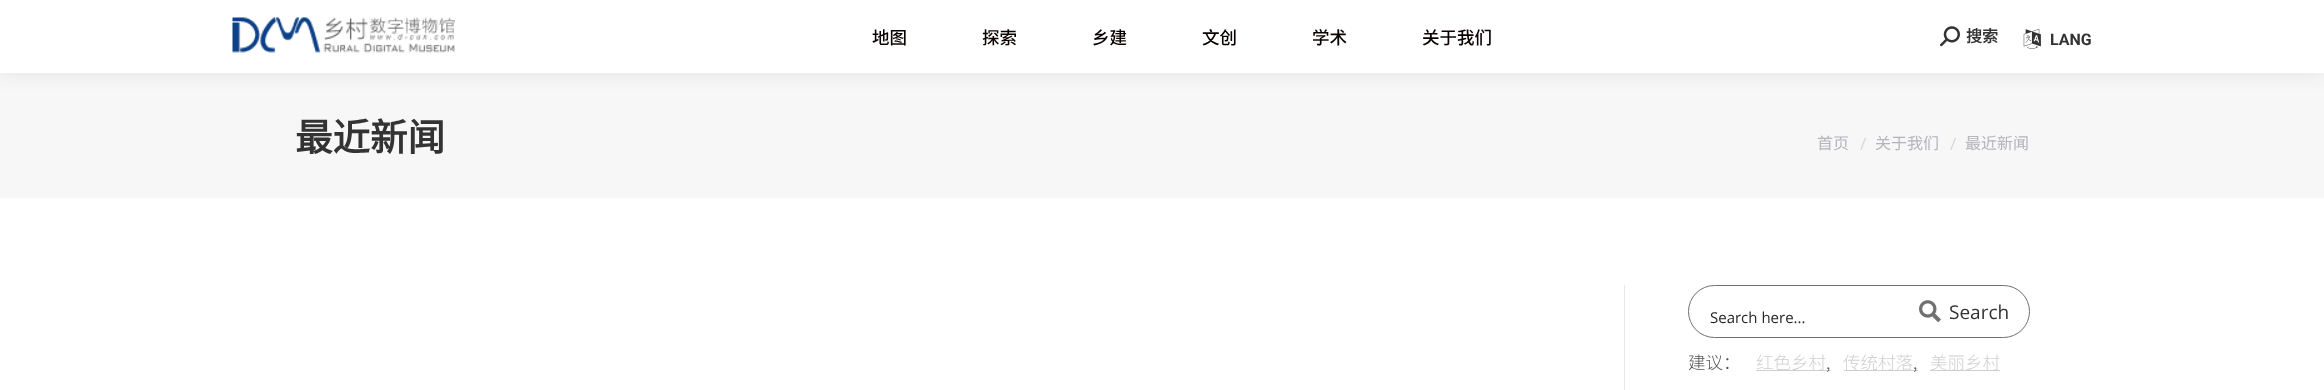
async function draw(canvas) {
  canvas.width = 2324;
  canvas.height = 390;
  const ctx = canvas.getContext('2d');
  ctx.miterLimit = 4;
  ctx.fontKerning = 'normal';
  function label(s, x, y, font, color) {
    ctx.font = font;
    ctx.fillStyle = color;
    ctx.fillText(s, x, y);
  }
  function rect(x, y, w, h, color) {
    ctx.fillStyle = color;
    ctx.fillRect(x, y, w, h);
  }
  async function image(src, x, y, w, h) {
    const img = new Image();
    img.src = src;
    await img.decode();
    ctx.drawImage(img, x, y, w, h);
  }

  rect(0, 0, 2324, 390, '#fff');
  rect(0, 73, 2324, 125, '#f7f7f7');
  ctx.fillStyle = '#00000012';
  ctx.filter = 'blur(9.5px)';
  ctx.beginPath();
  ctx.rect(-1, -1, 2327, 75);
  ctx.fill();
  ctx.filter = 'none';
  rect(0, 0, 2324, 73, '#fff');
  await image('assets/img1.png', 232, 17, 223, 36);
  label('地图', 872, 44, '500 17.5px Noto Sans SC', '#0a0000');
  label('探索', 982, 44, '500 17.5px Noto Sans SC', '#0a0000');
  label('乡建', 1092, 44, '500 17.5px Noto Sans SC', '#0a0000');
  label('文创', 1202, 44, '500 17.5px Noto Sans SC', '#0a0000');
  label('学术', 1312, 44, '500 17.5px Noto Sans SC', '#0a0000');
  label('关于我们', 1422, 44, '500 17.5px Noto Sans SC', '#0a0000');
  await image('assets/img2.png', 1940, 26, 20, 21);
  label('搜索', 1966, 42, 'bold 16px Noto Sans CJK SC', '#333');
  await image('assets/img3.png', 2023, 29, 18, 20);
  label('LANG', 2050, 45, 'bold 16px Roboto', '#333');
  label('最近新闻', 295, 151, 'bold 37.5px Noto Sans CJK SC', '#333');
  label('首页', 1817, 149, '16px Noto Sans CJK SC', '#b4b5bb');
  label('/', 1860, 149, '16px Roboto', '#d6d6d9');
  label('关于我们', 1875, 149, '16px Noto Sans CJK SC', '#b4b5bb');
  label('/', 1950, 149, '16px Roboto', '#d6d6d9');
  label('最近新闻', 1965, 149, '16px Noto Sans CJK SC', '#b4b5bb');
  rect(1624, 285, 1, 105, '#e7e7e7');
  ctx.beginPath();
  ctx.roundRect(1688.5, 285.5, 341, 52, 26);
  ctx.strokeStyle = '#707070';
  ctx.stroke();
  label('Search here...', 1710, 323, '15px Open Sans', '#262626');
  await image('assets/img4.png', 1919, 300, 22, 23);
  label('Search', 1949, 319, '19px Open Sans', '#333');
  label('建议：', 1688, 369, '300 17.5px Noto Sans SC', '#555');
  rect(1756, 370, 75, 1, '#cfcfcf');
  label('红色乡村', 1756, 369, '300 17.5px Noto Sans SC', '#cfcfcf');
  label(',', 1826, 369, '300 17.5px Noto Sans SC', '#555');
  rect(1844, 370, 74, 1, '#cfcfcf');
  label('传统村落', 1843, 369, '300 17.5px Noto Sans SC', '#cfcfcf');
  label(',', 1913, 369, '300 17.5px Noto Sans SC', '#555');
  rect(1930, 370, 70, 1, '#cfcfcf');
  label('美丽乡村', 1930, 369, '300 17.5px Noto Sans SC', '#cfcfcf');
}

draw(document.querySelector('canvas'));
